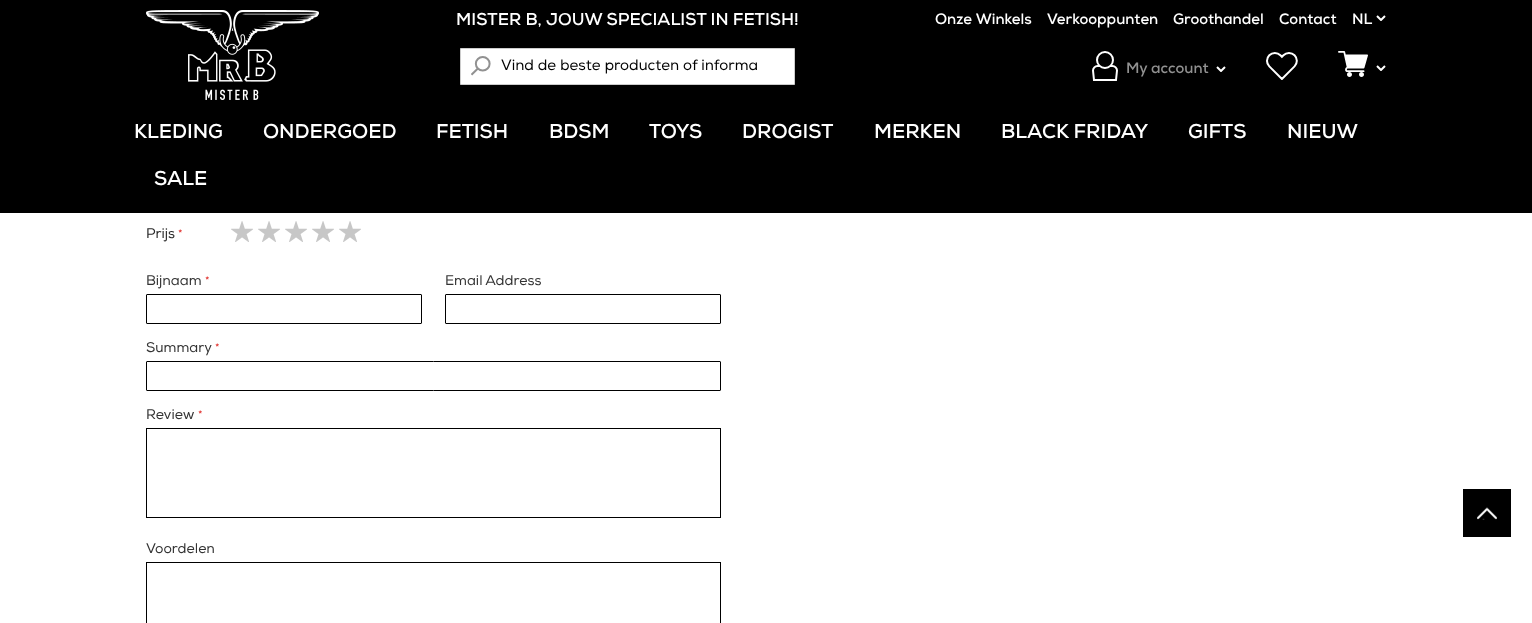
async function draw(canvas) {
  canvas.width = 1532;
  canvas.height = 623;
  const ctx = canvas.getContext('2d');
  ctx.miterLimit = 4;
  ctx.fontKerning = 'normal';
  function label(s, x, y, font, color) {
    ctx.font = font;
    ctx.fillStyle = color;
    ctx.fillText(s, x, y);
  }
  function rect(x, y, w, h, color) {
    ctx.fillStyle = color;
    ctx.fillRect(x, y, w, h);
  }
  async function image(src, x, y, w, h) {
    const img = new Image();
    img.src = src;
    await img.decode();
    ctx.drawImage(img, x, y, w, h);
  }

  rect(0, 0, 1532, 623, '#fff');
  rect(0, 0, 1532, 213, '#000');
  await image('assets/img1.png', 146, 10, 173, 90);
  label('MISTER B, JOUW SPECIALIST IN FETISH!', 456, 25, '17px "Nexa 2"', '#fff');
  ctx.beginPath();
  ctx.rect(460.5, 48.5, 334, 36);
  ctx.fill();
  ctx.strokeStyle = '#ccc';
  ctx.stroke();
  await image('assets/img2.png', 471, 56, 20, 20);
  label('Vind de beste producten of informa', 501, 70, '15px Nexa', '#000');
  label('Onze Winkels', 935, 24, '15px "Nexa 2"', '#fff');
  label('Verkooppunten', 1047, 24, '15px "Nexa 2"', '#fff');
  label('Groothandel', 1173, 24, '15px "Nexa 2"', '#fff');
  label('Contact', 1279, 24, '15px "Nexa 2"', '#fff');
  label('NL', 1352, 24, '15px "Nexa 2"', '#fff');
  await image('assets/img3.png', 1376, 15, 10, 6);
  await image('assets/img4.png', 1092, 51, 26, 30);
  label('My account', 1126, 73, '15px "Nexa 2"', '#919191');
  await image('assets/img3.png', 1216, 66, 10, 6);
  await image('assets/img5.png', 1266, 52, 32, 28);
  await image('assets/img6.png', 1338, 51, 30, 26);
  await image('assets/img3.png', 1376, 65, 10, 6);
  label('KLEDING', 134, 138, '20px "Nexa 2"', '#fff');
  label('ONDERGOED', 263, 138, '20px "Nexa 2"', '#fff');
  label('FETISH', 436, 138, '20px "Nexa 2"', '#fff');
  label('BDSM', 549, 138, '20px "Nexa 2"', '#fff');
  label('TOYS', 649, 138, '20px "Nexa 2"', '#fff');
  label('DROGIST', 742, 138, '20px "Nexa 2"', '#fff');
  label('MERKEN', 874, 138, '20px "Nexa 2"', '#fff');
  label('BLACK FRIDAY', 1001, 138, '20px "Nexa 2"', '#fff');
  label('GIFTS', 1188, 138, '20px "Nexa 2"', '#fff');
  label('NIEUW', 1287, 138, '20px "Nexa 2"', '#fff');
  label('SALE', 154, 185, '20px "Nexa 2"', '#fff');
  label('Prijs', 146, 238, '14px Nexa', '#292929');
  label('*', 178, 238, '12px Nexa', '#e02b27');
  await image('assets/img7.png', 231, 221, 130, 21);
  label('Bijnaam', 146, 285, '14px Nexa', '#333');
  label('*', 205, 285, '12px Nexa', '#e02b27');
  ctx.beginPath();
  ctx.roundRect(146.5, 294.5, 275, 29, 0.5);
  ctx.strokeStyle = '#000';
  ctx.stroke();
  label('Email Address', 445, 285, '14px Nexa', '#333');
  ctx.beginPath();
  ctx.roundRect(445.5, 294.5, 275, 29, 0.5);
  ctx.stroke();
  label('Summary', 146, 352, '14px Nexa', '#333');
  label('*', 215, 352, '12px Nexa', '#e02b27');
  ctx.beginPath();
  ctx.roundRect(146.5, 361.5, 574, 29, 0.5);
  ctx.stroke();
  label('Review', 146, 419, '14px Nexa', '#333');
  label('*', 198, 419, '12px Nexa', '#e02b27');
  ctx.strokeRect(146.5, 428.5, 574, 89);
  label('Voordelen', 146, 553, '14px Nexa', '#333');
  ctx.strokeRect(146.5, 562.5, 574, 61);
  rect(1463, 489, 48, 48, '#000');
  await image('assets/img8.png', 1477, 507, 20, 13);
}

draw(document.querySelector('canvas'));
